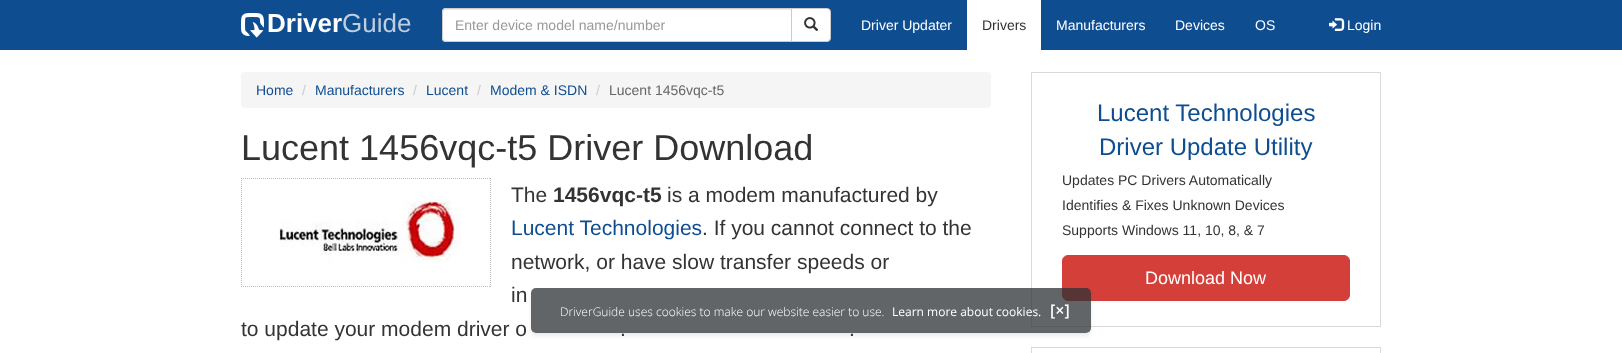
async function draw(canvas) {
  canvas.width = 1622;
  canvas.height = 353;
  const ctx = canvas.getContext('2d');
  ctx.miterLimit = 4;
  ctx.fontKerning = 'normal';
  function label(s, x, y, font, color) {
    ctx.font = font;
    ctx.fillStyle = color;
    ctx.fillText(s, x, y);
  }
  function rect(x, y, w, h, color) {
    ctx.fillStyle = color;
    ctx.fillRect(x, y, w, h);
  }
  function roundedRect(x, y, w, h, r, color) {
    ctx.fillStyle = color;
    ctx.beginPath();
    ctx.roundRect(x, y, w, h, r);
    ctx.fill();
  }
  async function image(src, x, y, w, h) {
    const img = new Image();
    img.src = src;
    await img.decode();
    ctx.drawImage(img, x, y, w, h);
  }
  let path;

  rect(0, 0, 1622, 353, '#fff');
  rect(0, 0, 1622, 50, '#0e4d90');
  await image('assets/img1.png', 241, 13, 23, 25);
  label('Driver', 267, 32, 'bold 26px Liberation Sans', '#fff');
  label('Guide', 342, 32, '26px Liberation Sans', '#becddf');
  ctx.fillStyle = '#fff';
  ctx.beginPath();
  ctx.roundRect(442, 8, 350, 34, [4, 0, 0, 4]);
  ctx.fill();
  ctx.fillStyle = '#ececec';
  path = new Path2D('M446 10H791V9H446C444 9 443 10 443 12V13C443 11 444 10 446 10Z');
  ctx.fill(path);
  ctx.beginPath();
  ctx.roundRect(442.5, 8.5, 349, 33, [3.5, 0, 0, 3.5]);
  ctx.strokeStyle = '#ccc';
  ctx.stroke();
  label('Enter device model name/number', 455, 30, '14px Liberation Sans', '#999');
  ctx.fillStyle = '#fff';
  ctx.beginPath();
  ctx.roundRect(791.5, 8.5, 39, 33, [0, 3.5, 3.5, 0]);
  ctx.fill();
  ctx.stroke();
  await image('assets/img2.png', 804, 17, 15, 14);
  label('Driver Updater', 861, 30, '14px Liberation Sans', '#fff');
  rect(967, 0, 74, 50, '#fff');
  label('Drivers', 982, 30, '14px Liberation Sans', '#333');
  label('Manufacturers', 1056, 30, '14px Liberation Sans', '#fff');
  label('Devices', 1175, 30, '14px Liberation Sans', '#fff');
  label('OS', 1255, 30, '14px Liberation Sans', '#fff');
  await image('assets/img3.png', 1329, 18, 16, 13);
  label('Login', 1347, 30, '14px Liberation Sans', '#fff');
  roundedRect(241, 72, 750, 36, 4, '#f5f5f5');
  label('Home', 256, 95, '14px Liberation Sans', '#0e4d90');
  label('/', 302, 95, '14px Liberation Sans', '#ccc');
  label('Manufacturers', 315, 95, '14px Liberation Sans', '#0e4d90');
  label('/', 413, 95, '14px Liberation Sans', '#ccc');
  label('Lucent', 426, 95, '14px Liberation Sans', '#0e4d90');
  label('/', 477, 95, '14px Liberation Sans', '#ccc');
  label('Modem & ISDN', 490, 95, '14px Liberation Sans', '#0e4d90');
  label('/', 596, 95, '14px Liberation Sans', '#ccc');
  label('Lucent 1456vqc-t5', 609, 95, '14px Liberation Sans', '#666');
  label('Lucent 1456vqc-t5 Driver Download', 241, 160, '36px Liberation Sans', '#333');
  path = new Path2D('M241 178.5H491');
  ctx.strokeStyle = '#b9bec2';
  ctx.setLineDash([1, 1]);
  ctx.stroke(path);
  path = new Path2D('M490.5 178V287');
  ctx.stroke(path);
  path = new Path2D('M241 286.5H491');
  ctx.stroke(path);
  path = new Path2D('M241.5 178V287');
  ctx.stroke(path);
  await image('assets/img4.png', 279, 199, 182, 64);
  label('The', 511, 202, '21px Liberation Sans', '#333');
  label('1456vqc-t5', 553, 202, 'bold 21px Liberation Sans', '#333');
  label('is a modem manufactured by', 667, 202, '21px Liberation Sans', '#333');
  label('Lucent Technologies', 511, 235, '21px Liberation Sans', '#0e4d90');
  label('. If you cannot connect to the', 702, 235, '21px Liberation Sans', '#333');
  label('network, or have slow transfer speeds or', 511, 269, '21px Liberation Sans', '#333');
  label('in', 511, 302, '21px Liberation Sans', '#333');
  label('to update your modem driver o', 241, 336, '21px Liberation Sans', '#333');
  label('.', 620, 336, '21px Liberation Sans', '#333');
  label('.', 849, 336, '21px Liberation Sans', '#333');
  ctx.strokeStyle = '#d9d9d9';
  ctx.setLineDash([]);
  ctx.strokeRect(1031.5, 72.5, 349, 254);
  label('Lucent Technologies', 1097, 121, '24px Liberation Sans', '#0e4d90');
  label('Driver Update Utility', 1099, 155, '24px Liberation Sans', '#0e4d90');
  label('Updates PC Drivers Automatically', 1062, 185, '14px Liberation Sans', '#333');
  label('Identifies & Fixes Unknown Devices', 1062, 210, '14px Liberation Sans', '#333');
  label('Supports Windows 11, 10, 8, & 7', 1062, 235, '14px Liberation Sans', '#333');
  ctx.fillStyle = '#d43f3a';
  ctx.beginPath();
  ctx.roundRect(1062.5, 255.5, 287, 45, 5.5);
  ctx.fill();
  ctx.strokeStyle = '#d23e39';
  ctx.stroke();
  label('Download Now', 1145, 284, '18px Liberation Sans', '#fff');
  ctx.strokeStyle = '#d9d9d9';
  ctx.strokeRect(1031.5, 347.5, 349, 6);
  ctx.save();
  path = new Path2D('M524 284H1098V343H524ZM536 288H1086C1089 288 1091 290 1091 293V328C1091 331 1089 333 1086 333H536C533 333 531 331 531 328V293C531 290 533 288 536 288Z');
  ctx.clip(path, 'evenodd');
  ctx.fillStyle = '#2e32341a';
  ctx.filter = 'blur(2px)';
  ctx.beginPath();
  ctx.roundRect(531, 291, 560, 45, 5);
  ctx.fill();
  ctx.filter = 'none';
  ctx.restore();
  roundedRect(531, 288, 560, 45, 5, '#2e3234bf');
  label('DriverGuide uses cookies to make our website easier to use.', 560, 316, '300 12px Open Sans', '#fff');
  label('Learn more about cookies.', 892, 316, '12px Open Sans', '#fff');
  label('[×]', 1050, 316, '600 16px Open Sans', '#fff');
}

draw(document.querySelector('canvas'));
